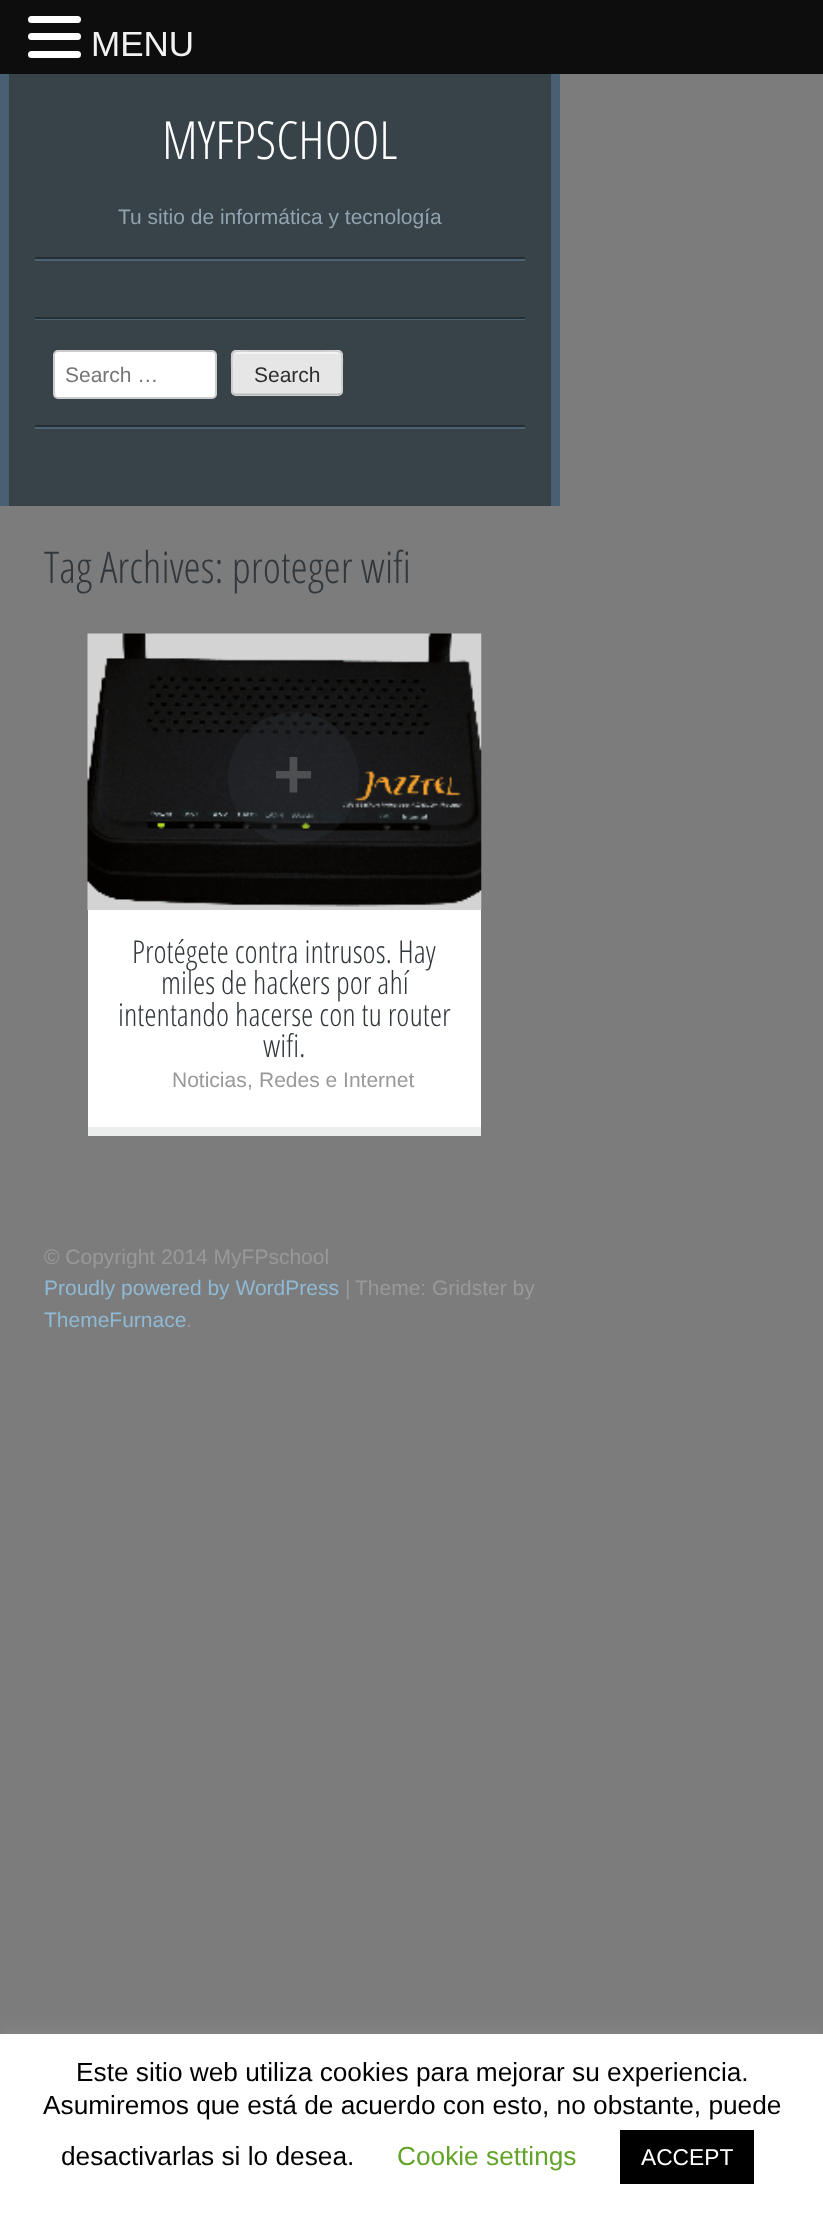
async function draw(canvas) {
  canvas.width = 823;
  canvas.height = 2213;
  const ctx = canvas.getContext('2d');
  ctx.miterLimit = 4;
  ctx.fontKerning = 'normal';
  function label(s, x, y, font, color) {
    ctx.font = font;
    ctx.fillStyle = color;
    ctx.fillText(s, x, y);
  }
  function rect(x, y, w, h, color) {
    ctx.fillStyle = color;
    ctx.fillRect(x, y, w, h);
  }
  function roundedRect(x, y, w, h, r, color) {
    ctx.fillStyle = color;
    ctx.beginPath();
    ctx.roundRect(x, y, w, h, r);
    ctx.fill();
  }
  async function image(src, x, y, w, h) {
    const img = new Image();
    img.src = src;
    await img.decode();
    ctx.drawImage(img, x, y, w, h);
  }
  let path;

  rect(0, 0, 823, 2213, '#7c7c7c');
  rect(0, 0, 823, 74, '#0d0d0d');
  roundedRect(28, 16, 53, 7, 3.5, '#fff');
  roundedRect(28, 33, 53, 7, 3.5, '#fff');
  roundedRect(28, 51, 53, 7, 3.5, '#fff');
  label('MENU', 91, 56, '35px Liberation Sans', '#f2f2f2');
  rect(9, 74, 542, 432, '#384249');
  rect(551, 74, 9, 432, '#476172');
  rect(0, 74, 9, 432, '#476172');
  label('MYFPSCHOOL', 162, 159, '300 52.5px Open Sans Condensed', '#fff');
  rect(35, 259, 490, 2, '#4b6272');
  rect(35, 257, 490, 2, '#272f34');
  label('Tu sitio de informática y tecnología', 118, 224, '21px Liberation Sans', '#91a3af');
  rect(35, 319, 490, 1, '#4b6272');
  rect(35, 317, 490, 2, '#272f34');
  rect(35, 427, 490, 2, '#4b6272');
  rect(35, 425, 490, 2, '#272f34');
  ctx.fillStyle = '#fff';
  ctx.beginPath();
  ctx.roundRect(54, 351, 162, 47, 4);
  ctx.fill();
  ctx.strokeStyle = '#ccc';
  ctx.lineWidth = 2;
  ctx.stroke();
  label('Search …', 65, 382, '21px Liberation Sans', '#757575');
  roundedRect(231, 350, 112, 46, 5, '#e6e6e6');
  ctx.fillStyle = '#f3f3f3';
  path = new Path2D('M236 354H338C340 354 341 355 341 357C341 348 324 352 320 352H254C250 352 233 348 233 357C233 355 234 354 236 354Z');
  ctx.fill(path);
  path = new Path2D('M341 393.5L338 394.5H236L233 393.5');
  ctx.strokeStyle = '#bbb';
  ctx.lineWidth = 1.8;
  ctx.stroke(path);
  path = new Path2D('M233 393.5C231 391 232 387 232 384.5V373C232 347.5 227.5 351 253 351H321C346.5 351 342 347.5 342 373V384.5C342 387 343 391 341 393.5');
  ctx.strokeStyle = '#ccc';
  ctx.stroke(path);
  label('Search', 254, 382, '21px Liberation Sans', '#2e2e2e');
  label('Tag Archives: proteger wifi', 44, 583, '300 43.75px Open Sans Condensed', '#31373b');
  rect(88, 910, 393, 217, '#fff');
  rect(88, 1127, 393, 9, '#eceded');
  await image('assets/img1.png', 87, 633, 395, 277);
  roundedRect(228, 712, 131, 132, 65.5, '#38424933');
  label('+', 273, 798, 'bold 70px Liberation Sans', '#4d4f51');
  label('Protégete contra intrusos. Hay', 132, 963, '300 31.5px Open Sans Condensed', '#31373b');
  label('miles de hackers por ahí', 161, 994, '300 31.5px Open Sans Condensed', '#31373b');
  label('intentando hacerse con tu router', 118, 1026, '300 31.5px Open Sans Condensed', '#31373b');
  label('wifi.', 263, 1057, '300 31.5px Open Sans Condensed', '#31373b');
  label('Noticias', 172, 1087, '21px Liberation Sans', '#999');
  label(',', 247, 1087, '21px Liberation Sans', '#999');
  label('Redes e Internet', 259, 1087, '21px Liberation Sans', '#999');
  label('© Copyright 2014 MyFPschool', 44, 1264, '21px Liberation Sans', '#999');
  label('Proudly powered by WordPress', 44, 1295, '21px Liberation Sans', '#8fb9d4');
  label('|', 345, 1295, '21px Liberation Sans', '#999');
  label('Theme: Gridster by', 355, 1295, '21px Liberation Sans', '#999');
  label('ThemeFurnace', 44, 1327, '21px Liberation Sans', '#8fb9d4');
  label('.', 186, 1327, '21px Liberation Sans', '#999');
  ctx.fillStyle = '#acabab4d';
  ctx.filter = 'blur(9px)';
  ctx.beginPath();
  ctx.rect(0, 2032, 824, 180);
  ctx.fill();
  ctx.filter = 'none';
  rect(0, 2034, 823, 179, '#fff');
  label('Este sitio web utiliza cookies para mejorar su experiencia.', 76, 2081, '26.25px Liberation Sans', '#000');
  label('Asumiremos que está de acuerdo con esto, no obstante, puede', 43, 2114, '26.25px Liberation Sans', '#000');
  label('desactivarlas si lo desea.', 61, 2165, '26.25px Liberation Sans', '#000');
  label('Cookie settings', 397, 2165, '26.25px Liberation Sans', '#62a329');
  rect(620, 2130, 134, 54, '#000');
  label('ACCEPT', 641, 2165, '22.75px Liberation Sans', '#fff');
}

draw(document.querySelector('canvas'));
